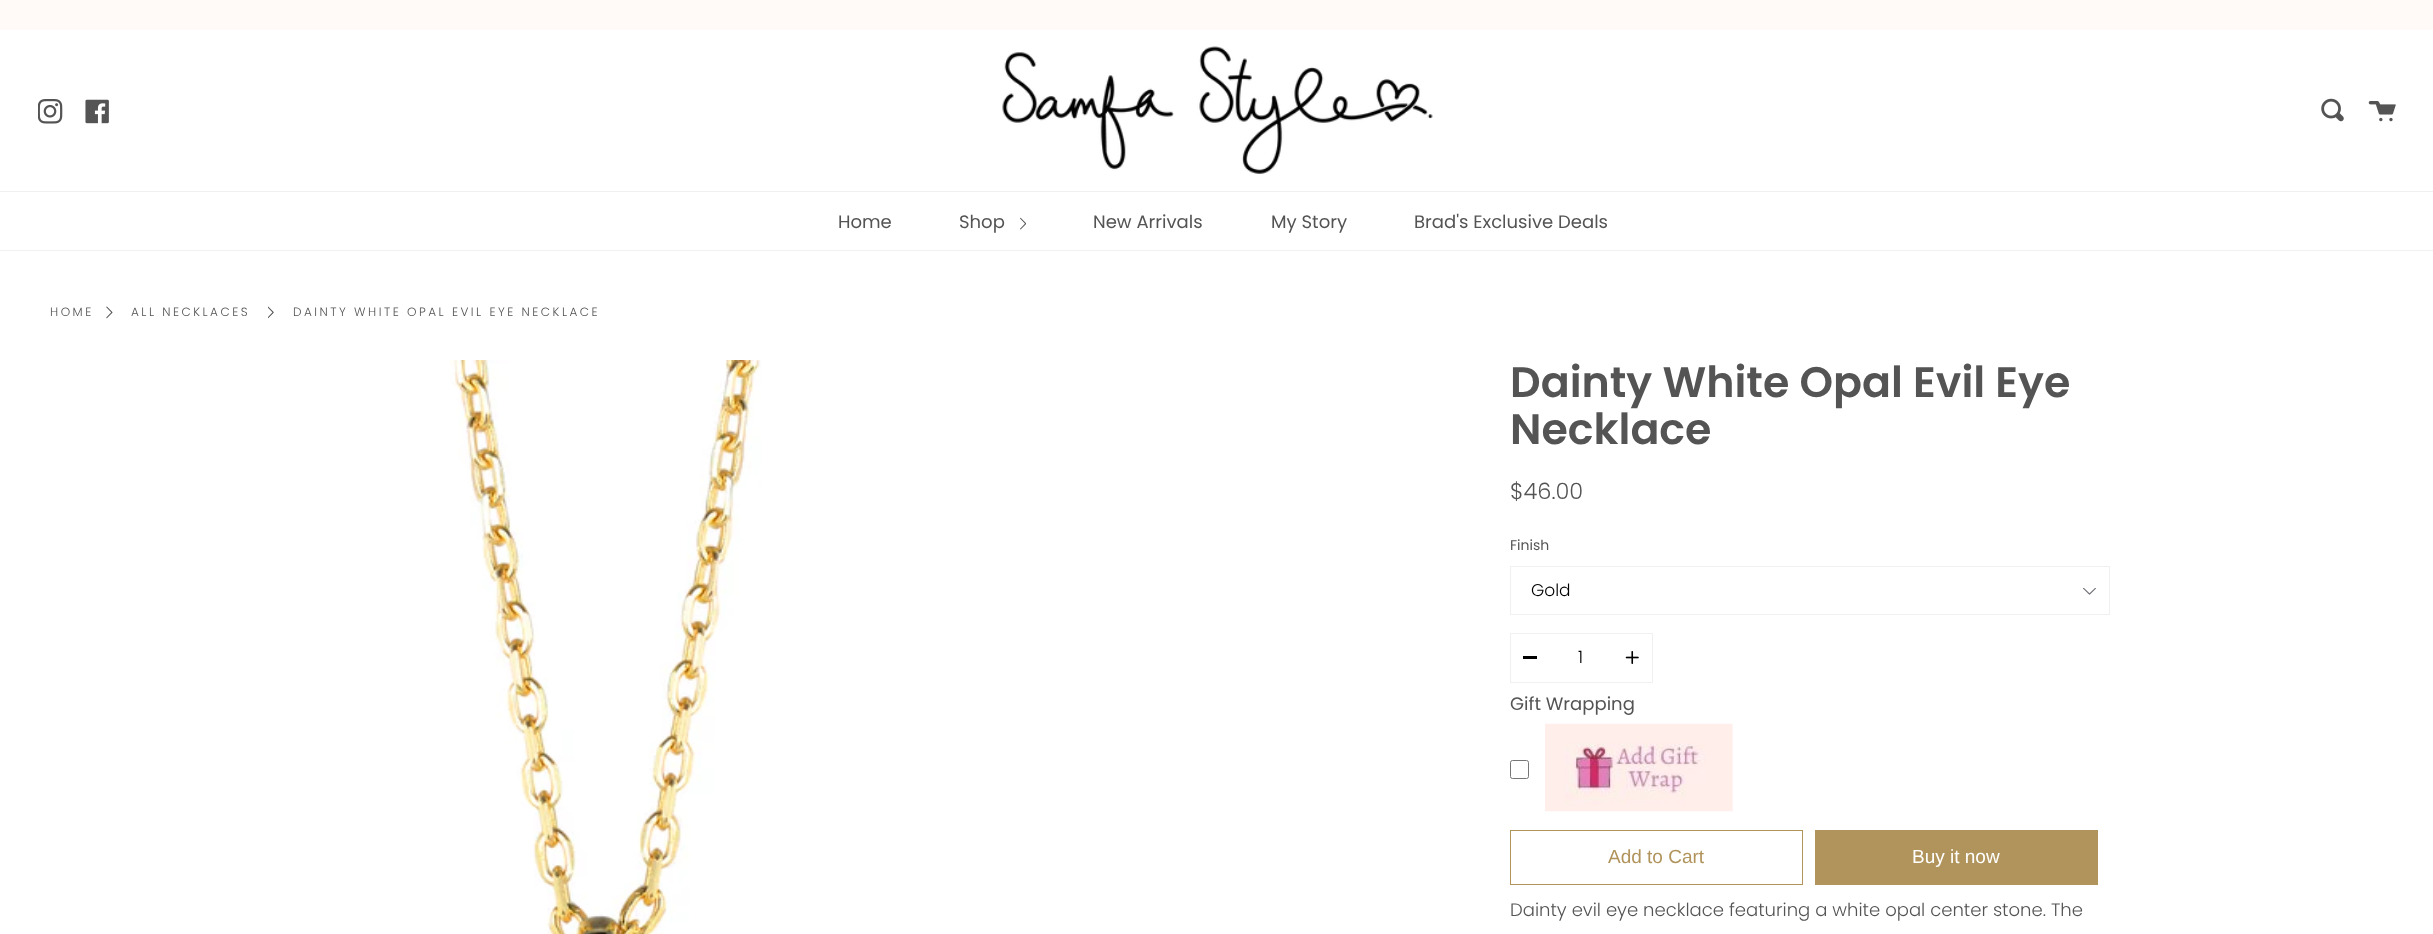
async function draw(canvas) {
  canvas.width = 2433;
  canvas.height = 934;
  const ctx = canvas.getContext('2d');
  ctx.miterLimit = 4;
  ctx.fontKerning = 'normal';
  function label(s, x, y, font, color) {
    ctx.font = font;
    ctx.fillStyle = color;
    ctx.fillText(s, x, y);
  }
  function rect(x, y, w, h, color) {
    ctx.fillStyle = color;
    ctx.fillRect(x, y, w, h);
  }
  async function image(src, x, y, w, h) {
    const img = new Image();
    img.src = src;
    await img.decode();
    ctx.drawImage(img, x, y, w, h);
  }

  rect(0, 0, 2433, 934, '#fff');
  rect(0, 0, 2433, 30, '#fff9f7');
  await image('assets/img1.png', 38, 99, 25, 25);
  await image('assets/img2.png', 85, 99, 24, 25);
  await image('assets/img3.png', 1002, 46, 431, 128);
  await image('assets/img4.png', 2321, 98, 23, 24);
  await image('assets/img5.png', 2368, 101, 28, 21);
  rect(0, 191, 2433, 1, '#f0f0f0');
  rect(0, 250, 2433, 1, '#f0f0f0');
  label('Home', 838, 228, '18.05px Poppins', '#545454');
  label('Shop', 959, 228, '18.05px Poppins', '#545454');
  await image('assets/img6.png', 1020, 217, 6, 13);
  label('New Arrivals', 1093, 228, '18.05px Poppins', '#545454');
  label('My Story', 1271, 228, '18.05px Poppins', '#545454');
  label('Brad\'s Exclusive Deals', 1414, 228, '18.05px Poppins', '#545454');
  ctx.letterSpacing = '2.5px';
  label('HOME', 50, 316, '300 12px Poppins', '#545454');
  await image('assets/img7.png', 106, 306, 7, 13);
  label('ALL NECKLACES', 131, 316, '300 12px Poppins', '#545454');
  await image('assets/img8.png', 268, 306, 6, 13);
  label('DAINTY WHITE OPAL EVIL EYE NECKLACE', 293, 316, '300 12px Poppins', '#545454');
  await image('assets/img9.png', 450, 360, 311, 574);
  ctx.letterSpacing = '0px';
  label('Dainty White Opal Evil Eye', 1510, 397, '600 42.75px Poppins', '#545454');
  label('Necklace', 1510, 444, '600 42.75px Poppins', '#545454');
  label('$46.00', 1510, 499, '300 22.5px Poppins', '#545454');
  label('Finish', 1510, 550, '14px Poppins', '#545454');
  await image('assets/img10.png', 2083, 588, 13, 7);
  ctx.strokeStyle = '#f0f0f0';
  ctx.strokeRect(1510.5, 566.5, 599, 48);
  label('Gold', 1531, 596, '300 17px Poppins', '#000');
  ctx.strokeRect(1510.5, 633.5, 142, 49);
  rect(1523, 656, 14, 3, '#000');
  label('1', 1578, 663, '300 17px Poppins', '#000');
  await image('assets/img11.png', 1625, 651, 14, 13);
  label('Gift Wrapping', 1510, 710, '18.05px Poppins', '#545454');
  ctx.beginPath();
  ctx.roundRect(1510.5, 760.5, 18, 18, 2);
  ctx.strokeStyle = '#767676';
  ctx.stroke();
  await image('assets/img12.png', 1545, 723, 188, 89);
  ctx.strokeStyle = '#b1945c';
  ctx.strokeRect(1510.5, 830.5, 292, 54);
  label('Add to Cart', 1608, 863, '19px Liberation Sans', '#b1945c');
  rect(1815, 830, 283, 55, '#b1945c');
  label('Buy it now', 1912, 863, '19px Liberation Sans', '#fff');
  label('Dainty evil eye necklace featuring a white opal center stone. The', 1510, 916, '300 18.05px Poppins', '#545454');
}

draw(document.querySelector('canvas'));
